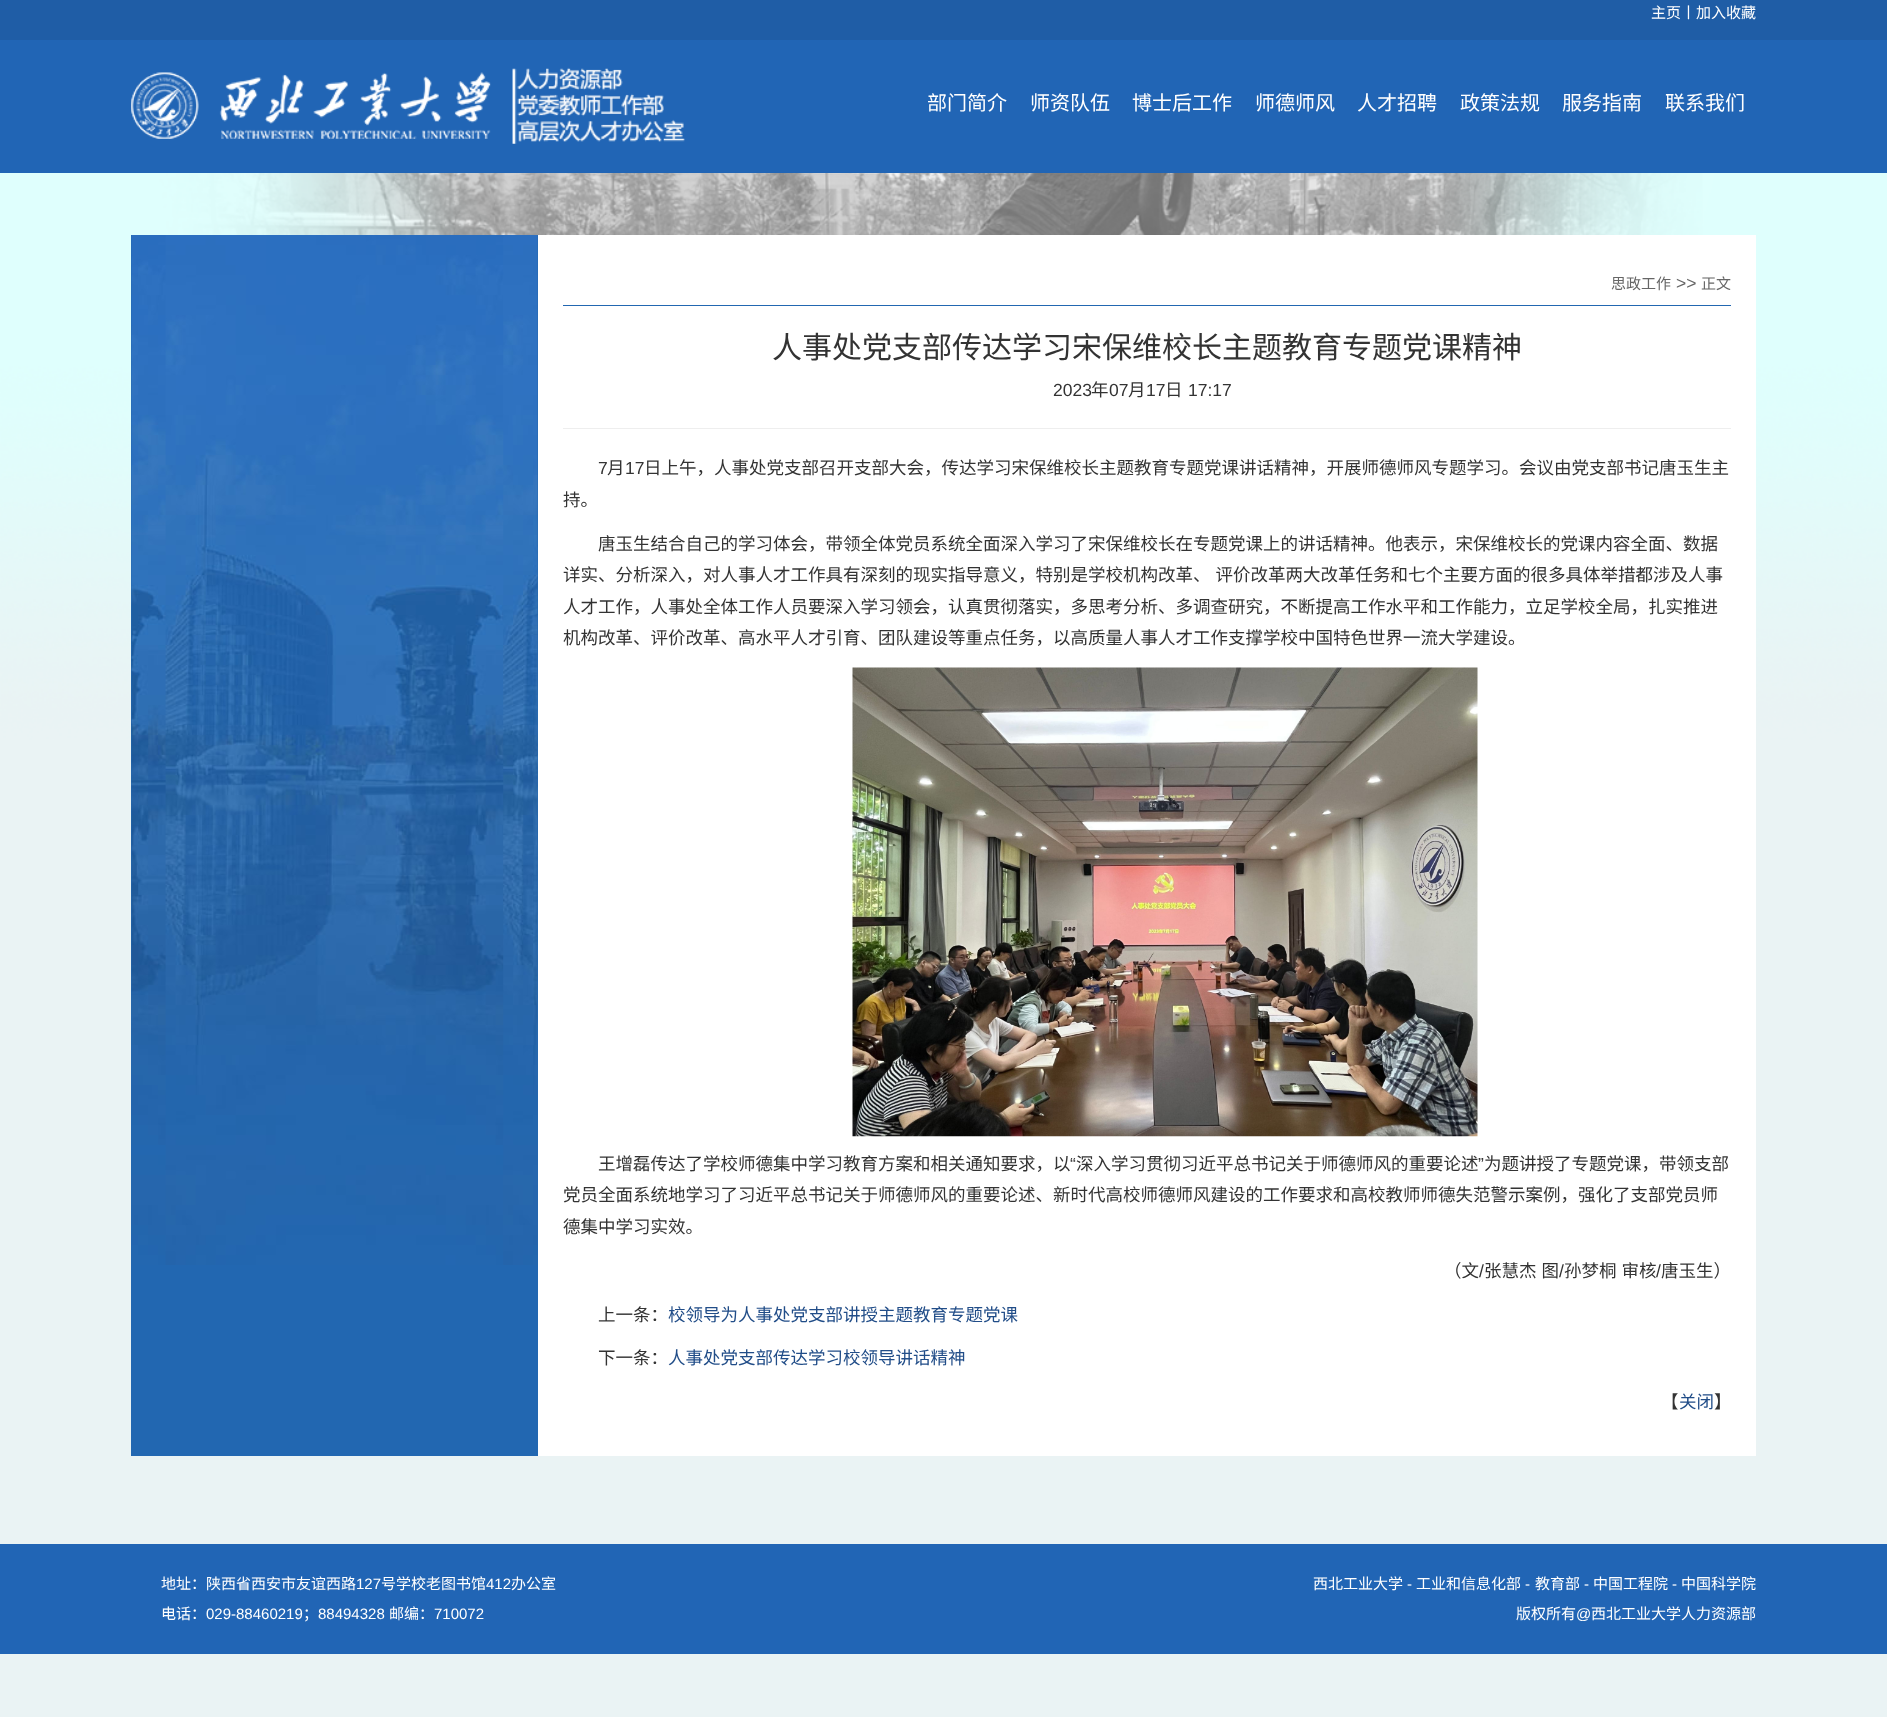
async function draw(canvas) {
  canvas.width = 1887;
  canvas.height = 1717;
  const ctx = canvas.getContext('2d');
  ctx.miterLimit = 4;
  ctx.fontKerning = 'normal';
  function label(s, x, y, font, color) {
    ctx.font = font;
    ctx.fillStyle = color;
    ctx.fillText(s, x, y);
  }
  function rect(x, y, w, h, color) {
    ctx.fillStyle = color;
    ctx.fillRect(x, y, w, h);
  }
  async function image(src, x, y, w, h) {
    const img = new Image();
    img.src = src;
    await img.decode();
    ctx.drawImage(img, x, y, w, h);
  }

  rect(0, 0, 1887, 1717, '#eaf3f4');
  await image('assets/img1.png', 0, 173, 1887, 567);
  rect(0, 40, 1887, 133, '#2165b5');
  rect(0, 0, 1887, 40, '#1f5da6');
  label('主页丨加入收藏', 1651, 18, '15px Noto Sans CJK SC', '#fff');
  await image('assets/img2.png', 131, 67, 554, 77);
  label('部门简介', 927, 110, '20px Noto Sans CJK SC', '#fff');
  label('师资队伍', 1030, 110, '20px Noto Sans CJK SC', '#fff');
  label('博士后工作', 1132, 110, '20px Noto Sans CJK SC', '#fff');
  label('师德师风', 1255, 110, '20px Noto Sans CJK SC', '#fff');
  label('人才招聘', 1357, 110, '20px Noto Sans CJK SC', '#fff');
  label('政策法规', 1460, 110, '20px Noto Sans CJK SC', '#fff');
  label('服务指南', 1562, 110, '20px Noto Sans CJK SC', '#fff');
  label('联系我们', 1665, 110, '20px Noto Sans CJK SC', '#fff');
  rect(538, 235, 1218, 1221, '#fff');
  rect(131, 235, 407, 1221, '#2267b1');
  await image('assets/img3.png', 131, 235, 407, 1030);
  rect(563, 305, 1168, 1, '#2267b1');
  label('思政工作', 1611, 289, '15px Noto Sans CJK SC', '#666');
  label('>>', 1676, 289, '17.5px Liberation Sans', '#666');
  label('正文', 1701, 289, '15px Noto Sans CJK SC', '#666');
  label('人事处党支部传达学习宋保维校长主题教育专题党课精神', 772, 358, '30px Noto Sans CJK SC', '#333');
  label('2023', 1053, 396, '17.5px Liberation Sans', '#333');
  label('年', 1091, 396, '17.5px Noto Sans CJK SC', '#333');
  label('07', 1109, 396, '17.5px Liberation Sans', '#333');
  label('月', 1128, 396, '17.5px Noto Sans CJK SC', '#333');
  label('17', 1146, 396, '17.5px Liberation Sans', '#333');
  label('日', 1165, 396, '17.5px Noto Sans CJK SC', '#333');
  label('17:17', 1188, 396, '17.5px Liberation Sans', '#333');
  rect(563, 428, 1168, 1, '#eee');
  label('7', 598, 474, '17.5px Liberation Sans', '#333');
  label('月', 607, 474, '17.5px Noto Sans CJK SC', '#333');
  label('17', 625, 474, '17.5px Liberation Sans', '#333');
  label('日上午，人事处党支部召开支部大会，传达学习宋保维校长主题教育专题党课讲话精神，开展师德师风专题学习。会议由党支部书记唐玉生主', 644, 474, '17.5px Noto Sans CJK SC', '#333');
  label('持。', 563, 506, '17.5px Noto Sans CJK SC', '#333');
  label('唐玉生结合自己的学习体会，带领全体党员系统全面深入学习了宋保维校长在专题党课上的讲话精神。他表示，宋保维校长的党课内容全面、数据', 598, 550, '17.5px Noto Sans CJK SC', '#333');
  ctx.wordSpacing = '1px';
  label('详实、分析深入，对人事人才工作具有深刻的现实指导意义，特别是学校机构改革、 评价改革两大改革任务和七个主要方面的很多具体举措都涉及人事', 563, 581, '17.5px Noto Sans CJK SC', '#333');
  ctx.wordSpacing = '0px';
  label('人才工作，人事处全体工作人员要深入学习领会，认真贯彻落实，多思考分析、多调查研究，不断提高工作水平和工作能力，立足学校全局，扎实推进', 563, 613, '17.5px Noto Sans CJK SC', '#333');
  label('机构改革、评价改革、高水平人才引育、团队建设等重点任务，以高质量人事人才工作支撑学校中国特色世界一流大学建设。', 563, 644, '17.5px Noto Sans CJK SC', '#333');
  await image('assets/img4.png', 852, 667, 626, 470);
  label('王增磊传达了学校师德集中学习教育方案和相关通知要求，以', 598, 1170, '17.5px Noto Sans CJK SC', '#333');
  label('“', 1070, 1170, '17.5px Liberation Sans', '#333');
  label('深入学习贯彻习近平总书记关于师德师风的重要论述', 1076, 1170, '17.5px Noto Sans CJK SC', '#333');
  label('”', 1478, 1170, '17.5px Liberation Sans', '#333');
  label('为题讲授了专题党课，带领支部', 1484, 1170, '17.5px Noto Sans CJK SC', '#333');
  label('党员全面系统地学习了习近平总书记关于师德师风的重要论述、新时代高校师德师风建设的工作要求和高校教师师德失范警示案例，强化了支部党员师', 563, 1201, '17.5px Noto Sans CJK SC', '#333');
  label('德集中学习实效。', 563, 1233, '17.5px Noto Sans CJK SC', '#333');
  label('（文', 1444, 1277, '17.5px Noto Sans CJK SC', '#333');
  label('/', 1479, 1277, '17.5px Liberation Sans', '#333');
  ctx.wordSpacing = '1px';
  label('张慧杰 图', 1484, 1277, '17.5px Noto Sans CJK SC', '#333');
  ctx.wordSpacing = '0px';
  label('/', 1559, 1277, '17.5px Liberation Sans', '#333');
  ctx.wordSpacing = '1px';
  label('孙梦桐 审核', 1564, 1277, '17.5px Noto Sans CJK SC', '#333');
  ctx.wordSpacing = '0px';
  label('/', 1656, 1277, '17.5px Liberation Sans', '#333');
  label('唐玉生）', 1661, 1277, '17.5px Noto Sans CJK SC', '#333');
  label('上一条：', 598, 1321, '17.5px Noto Sans CJK SC', '#333');
  label('校领导为人事处党支部讲授主题教育专题党课', 668, 1321, '17.5px Noto Sans CJK SC', '#214d88');
  label('下一条：', 598, 1364, '17.5px Noto Sans CJK SC', '#333');
  label('人事处党支部传达学习校领导讲话精神', 668, 1364, '17.5px Noto Sans CJK SC', '#214d88');
  label('【', 1661, 1408, '17.5px Noto Sans CJK SC', '#333');
  label('关闭', 1679, 1408, '17.5px Noto Sans CJK SC', '#214d88');
  label('】', 1714, 1408, '17.5px Noto Sans CJK SC', '#333');
  rect(0, 1544, 1887, 110, '#2165b5');
  label('地址：陕西省西安市友谊西路', 161, 1589, '15px Noto Sans CJK SC', '#fff');
  label('127', 356, 1589, '15px Liberation Sans', '#fff');
  label('号学校老图书馆', 381, 1589, '15px Noto Sans CJK SC', '#fff');
  label('412', 486, 1589, '15px Liberation Sans', '#fff');
  label('办公室', 511, 1589, '15px Noto Sans CJK SC', '#fff');
  label('电话：', 161, 1619, '15px Noto Sans CJK SC', '#fff');
  label('029-88460219', 206, 1619, '15px Liberation Sans', '#fff');
  label('；', 303, 1619, '15px Noto Sans CJK SC', '#fff');
  label('88494328', 318, 1619, '15px Liberation Sans', '#fff');
  label('邮编：', 389, 1619, '15px Noto Sans CJK SC', '#fff');
  label('710072', 434, 1619, '15px Liberation Sans', '#fff');
  label('西北工业大学', 1313, 1589, '15px Noto Sans CJK SC', '#fff');
  label('-', 1407, 1589, '15px Liberation Sans', '#fff');
  label('工业和信息化部', 1416, 1589, '15px Noto Sans CJK SC', '#fff');
  label('-', 1525, 1589, '15px Liberation Sans', '#fff');
  label('教育部', 1535, 1589, '15px Noto Sans CJK SC', '#fff');
  label('-', 1584, 1589, '15px Liberation Sans', '#fff');
  label('中国工程院', 1593, 1589, '15px Noto Sans CJK SC', '#fff');
  label('-', 1672, 1589, '15px Liberation Sans', '#fff');
  label('中国科学院', 1681, 1589, '15px Noto Sans CJK SC', '#fff');
  label('版权所有', 1516, 1619, '15px Noto Sans CJK SC', '#fff');
  label('@', 1576, 1619, '15px Liberation Sans', '#fff');
  label('西北工业大学人力资源部', 1591, 1619, '15px Noto Sans CJK SC', '#fff');
}

draw(document.querySelector('canvas'));
